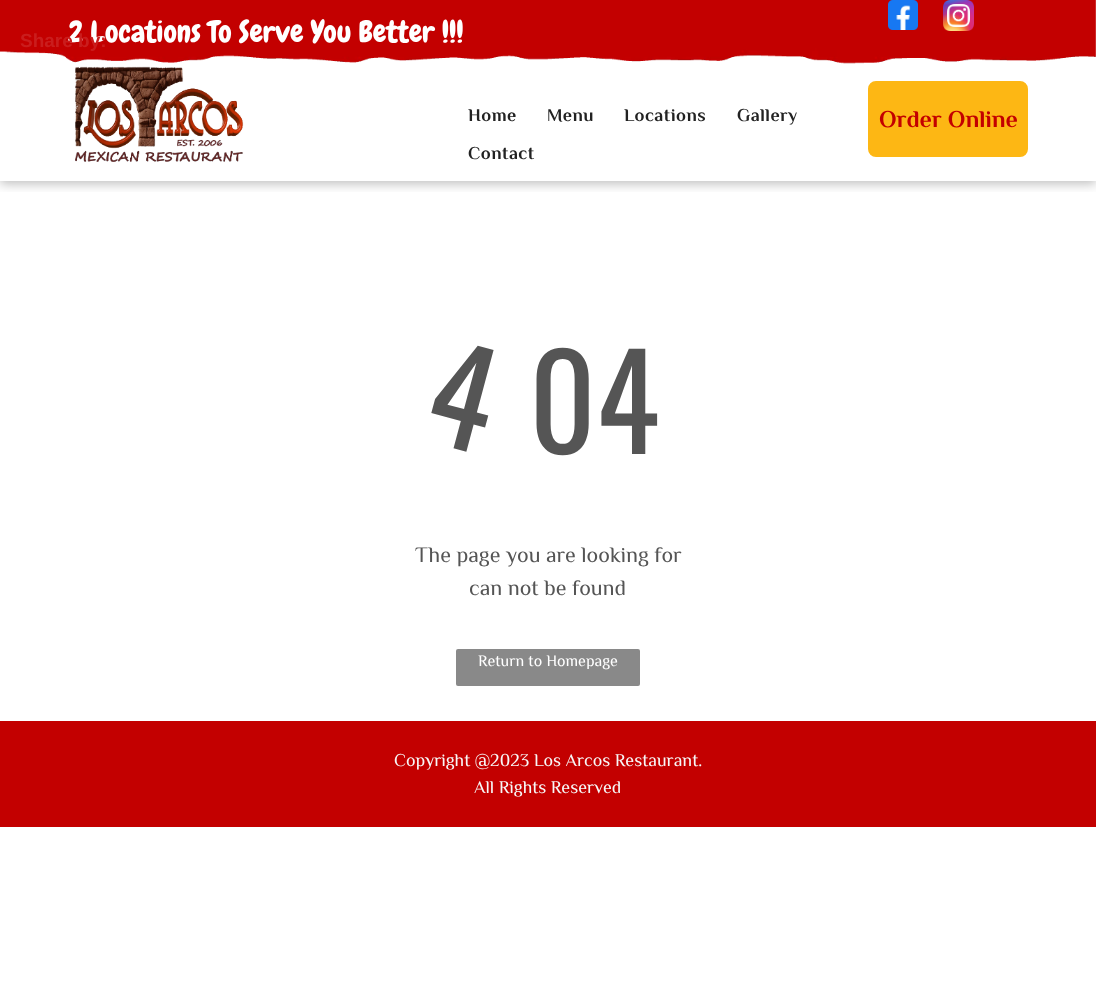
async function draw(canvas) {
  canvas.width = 1096;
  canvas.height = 992;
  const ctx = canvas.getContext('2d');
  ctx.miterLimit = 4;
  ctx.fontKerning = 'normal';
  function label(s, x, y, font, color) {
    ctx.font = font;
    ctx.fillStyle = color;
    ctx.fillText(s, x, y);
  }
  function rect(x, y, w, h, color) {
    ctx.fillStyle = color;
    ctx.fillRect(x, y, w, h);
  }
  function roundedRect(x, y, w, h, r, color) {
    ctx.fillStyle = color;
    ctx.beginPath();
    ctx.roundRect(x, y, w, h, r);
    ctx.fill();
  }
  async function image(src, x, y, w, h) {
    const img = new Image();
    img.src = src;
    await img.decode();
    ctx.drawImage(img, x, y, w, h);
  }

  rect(0, 0, 1096, 992, '#fff');
  ctx.save();
  ctx.beginPath();
  ctx.rect(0, 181, 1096, 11);
  ctx.clip();
  ctx.fillStyle = '#00000040';
  ctx.filter = 'blur(5.5px)';
  ctx.beginPath();
  ctx.rect(0, 3, 1096, 181);
  ctx.fill();
  ctx.filter = 'none';
  ctx.restore();
  await image('assets/img1.png', 0, 0, 1096, 64);
  label('2 Locations To Serve You Better !!!', 68, 42, '30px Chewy', '#fff');
  label('Share by:', 20, 47, 'bold 19px Liberation Sans', '#ca1d1d');
  await image('assets/img2.png', 888, 0, 30, 30);
  await image('assets/img3.png', 943, 0, 31, 31);
  await image('assets/img4.png', 75, 66, 169, 96);
  ctx.letterSpacing = '0.5px';
  label('Home', 468, 121, 'bold 18px Philosopher', '#222');
  label('Menu', 547, 121, 'bold 18px Philosopher', '#222');
  label('Locations', 624, 121, 'bold 18px Philosopher', '#222');
  label('Gallery', 737, 121, 'bold 18px Philosopher', '#222');
  label('Contact', 468, 159, 'bold 18px Philosopher', '#222');
  ctx.fillStyle = '#fdb714';
  ctx.beginPath();
  ctx.roundRect(869, 82, 158, 74, 7);
  ctx.fill();
  ctx.strokeStyle = '#fdb714';
  ctx.lineWidth = 2;
  ctx.stroke();
  ctx.letterSpacing = '0px';
  label('Order Online', 879, 127, 'bold 24px Philosopher', '#c30000');
  ctx.font = '130px Oswald';
  ctx.fillStyle = '#555';
  ctx.save();
  ctx.translate(419, 439);
  ctx.rotate(15 * Math.PI / 180);
  ctx.fillText('4', 0, 0);
  ctx.restore();
  label('04', 529, 454, '130px Oswald', '#555');
  label('The page you are looking for', 415, 562, '22px Philosopher', '#555');
  label('can not be found', 469, 595, '22px Philosopher', '#555');
  roundedRect(456, 649, 184, 37, 2, '#898989');
  label('Return to Homepage', 478, 666, '16px Philosopher', '#fff');
  rect(0, 721, 1096, 106, '#c30000');
  label('Copyright @2023 Los Arcos Restaurant.', 394, 766, '18px Philosopher', '#f7f7f7');
  label('All Rights Reserved', 474, 793, '18px Philosopher', '#f7f7f7');
}

draw(document.querySelector('canvas'));
